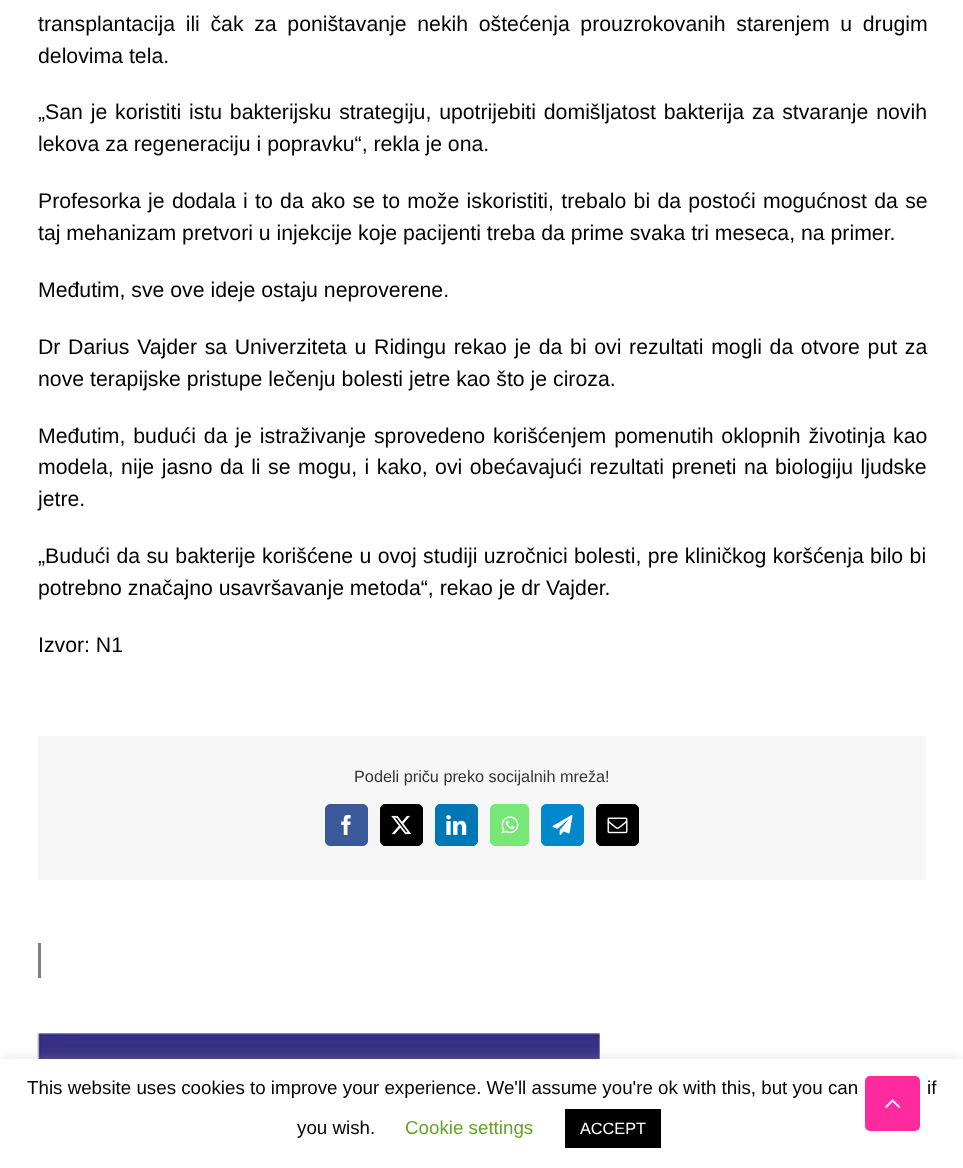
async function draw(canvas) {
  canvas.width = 963;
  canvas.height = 1168;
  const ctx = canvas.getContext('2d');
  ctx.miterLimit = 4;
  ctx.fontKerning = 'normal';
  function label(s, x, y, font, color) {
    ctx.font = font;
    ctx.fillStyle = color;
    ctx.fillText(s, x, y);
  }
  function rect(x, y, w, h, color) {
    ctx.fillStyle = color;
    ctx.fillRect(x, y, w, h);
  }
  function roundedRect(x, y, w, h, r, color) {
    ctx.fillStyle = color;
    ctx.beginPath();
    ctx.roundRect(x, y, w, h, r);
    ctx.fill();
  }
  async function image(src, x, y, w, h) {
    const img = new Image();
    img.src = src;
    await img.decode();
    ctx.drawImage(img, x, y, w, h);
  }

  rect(0, 0, 963, 1168, '#fff');
  ctx.wordSpacing = '4.75px';
  label('transplantacija ili čak za poništavanje nekih oštećenja prouzrokovanih starenjem u drugim', 38, 31, '21.25px Liberation Sans', '#000');
  ctx.wordSpacing = '0px';
  label('delovima tela.', 38, 63, '21.25px Liberation Sans', '#000');
  ctx.wordSpacing = '1.9px';
  label('„San je koristiti istu bakterijsku strategiju, upotrijebiti domišljatost bakterija za stvaranje novih', 38, 119, '21.25px Liberation Sans', '#000');
  ctx.wordSpacing = '0px';
  label('lekova za regeneraciju i popravku“, rekla je ona.', 38, 151, '21.25px Liberation Sans', '#000');
  ctx.wordSpacing = '1.4px';
  label('Profesorka je dodala i to da ako se to može iskoristiti, trebalo bi da postoći mogućnost da se', 38, 208, '21.25px Liberation Sans', '#000');
  ctx.wordSpacing = '0px';
  label('taj mehanizam pretvori u injekcije koje pacijenti treba da prime svaka tri meseca, na primer.', 38, 240, '21.25px Liberation Sans', '#000');
  label('Međutim, sve ove ideje ostaju neproverene.', 38, 297, '21.25px Liberation Sans', '#000');
  ctx.wordSpacing = '1.75px';
  label('Dr Darius Vajder sa Univerziteta u Ridingu rekao je da bi ovi rezultati mogli da otvore put za', 38, 354, '21.25px Liberation Sans', '#000');
  ctx.wordSpacing = '0px';
  label('nove terapijske pristupe lečenju bolesti jetre kao što je ciroza.', 38, 386, '21.25px Liberation Sans', '#000');
  ctx.wordSpacing = '2px';
  label('Međutim, budući da je istraživanje sprovedeno korišćenjem pomenutih oklopnih životinja kao', 38, 443, '21.25px Liberation Sans', '#000');
  ctx.wordSpacing = '1.6px';
  label('modela, nije jasno da li se mogu, i kako, ovi obećavajući rezultati preneti na biologiju ljudske', 38, 474, '21.25px Liberation Sans', '#000');
  ctx.wordSpacing = '0px';
  label('jetre.', 38, 506, '21.25px Liberation Sans', '#000');
  ctx.wordSpacing = '0.5px';
  label('„Budući da su bakterije korišćene u ovoj studiji uzročnici bolesti, pre kliničkog koršćenja bilo bi', 38, 563, '21.25px Liberation Sans', '#000');
  ctx.wordSpacing = '0px';
  label('potrebno značajno usavršavanje metoda“, rekao je dr Vajder.', 38, 595, '21.25px Liberation Sans', '#000');
  label('Izvor: N1', 38, 652, '21.25px Liberation Sans', '#000');
  rect(38, 736, 888, 144, '#f6f6f6');
  label('Podeli priču preko socijalnih mreža!', 354, 782, '16.25px Liberation Sans', '#333');
  ctx.fillStyle = '#3b5998';
  ctx.beginPath();
  ctx.roundRect(325.5, 804.5, 42, 41, 4.5);
  ctx.fill();
  ctx.strokeStyle = '#3b5998';
  ctx.stroke();
  await image('assets/img1.png', 341, 815, 10, 20);
  ctx.fillStyle = '#000';
  ctx.beginPath();
  ctx.roundRect(380.5, 804.5, 42, 41, 4.5);
  ctx.fill();
  ctx.strokeStyle = '#000';
  ctx.stroke();
  await image('assets/img2.png', 391, 815, 21, 20);
  ctx.fillStyle = '#0077b5';
  ctx.beginPath();
  ctx.roundRect(435.5, 804.5, 42, 41, 4.5);
  ctx.fill();
  ctx.strokeStyle = '#0077b5';
  ctx.stroke();
  await image('assets/img3.png', 446, 815, 21, 20);
  ctx.fillStyle = '#77e878';
  ctx.beginPath();
  ctx.roundRect(490.5, 804.5, 38, 41, 4.5);
  ctx.fill();
  ctx.strokeStyle = '#77e878';
  ctx.stroke();
  await image('assets/img4.png', 501, 816, 18, 18);
  ctx.fillStyle = '#08c';
  ctx.beginPath();
  ctx.roundRect(541.5, 804.5, 42, 41, 4.5);
  ctx.fill();
  ctx.strokeStyle = '#08c';
  ctx.stroke();
  await image('assets/img5.png', 552, 815, 21, 20);
  ctx.fillStyle = '#000';
  ctx.beginPath();
  ctx.roundRect(596.5, 804.5, 42, 41, 4.5);
  ctx.fill();
  ctx.strokeStyle = '#000';
  ctx.stroke();
  await image('assets/img6.png', 607, 817, 21, 17);
  rect(38, 943, 3, 35, '#808080');
  await image('assets/img7.png', 37, 1033, 563, 26);
  ctx.fillStyle = '#acabab4d';
  ctx.filter = 'blur(6px)';
  ctx.beginPath();
  ctx.rect(0, 1058, 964, 110);
  ctx.fill();
  ctx.filter = 'none';
  rect(0, 1059, 963, 109, '#fff');
  roundedRect(865, 1076, 55, 55, 5, '#ff1493e6');
  await image('assets/img8.png', 885, 1099, 16, 10);
  label('This website uses cookies to improve your experience. We\'ll assume you\'re ok with this, but you can', 27, 1094, '18.75px Liberation Sans', '#000');
  label('if', 927, 1094, '18.75px Liberation Sans', '#000');
  label('you wish.', 297, 1134, '18.75px Liberation Sans', '#000');
  label('Cookie settings', 405, 1134, '18.75px Liberation Sans', '#62a329');
  rect(565, 1109, 96, 39, '#000');
  label('ACCEPT', 580, 1134, '16.25px Liberation Sans', '#fff');
}

draw(document.querySelector('canvas'));
